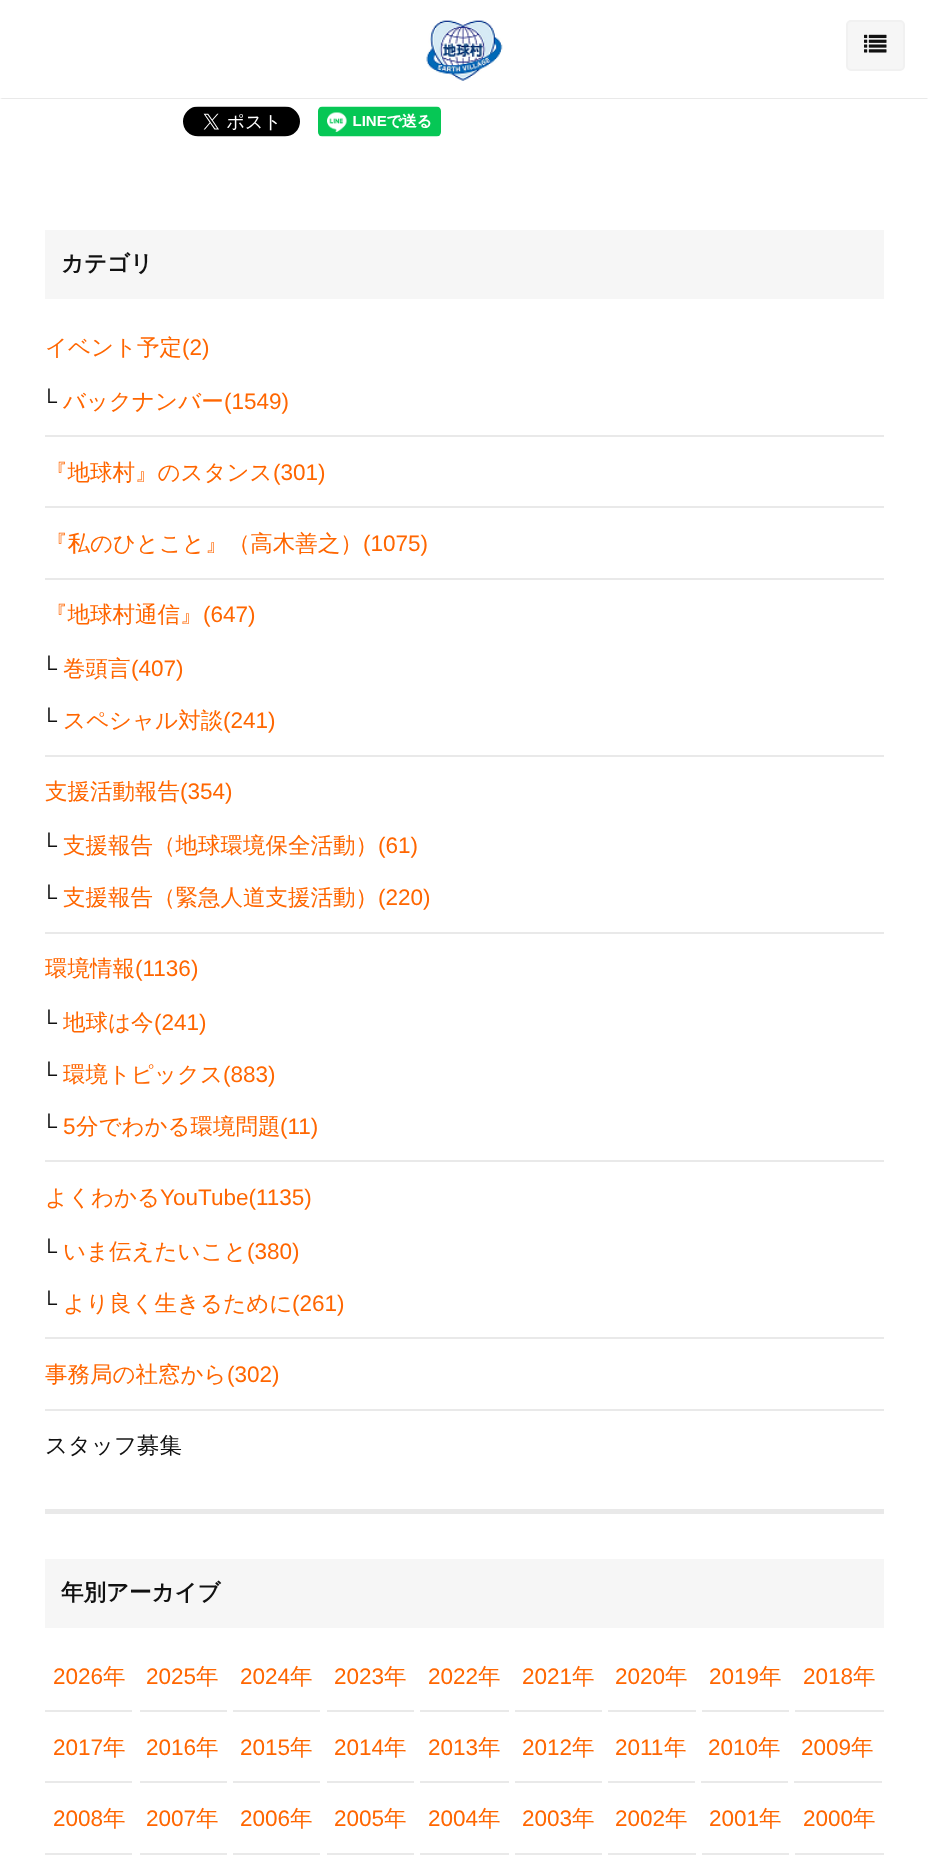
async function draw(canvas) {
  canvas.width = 928;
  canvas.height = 1865;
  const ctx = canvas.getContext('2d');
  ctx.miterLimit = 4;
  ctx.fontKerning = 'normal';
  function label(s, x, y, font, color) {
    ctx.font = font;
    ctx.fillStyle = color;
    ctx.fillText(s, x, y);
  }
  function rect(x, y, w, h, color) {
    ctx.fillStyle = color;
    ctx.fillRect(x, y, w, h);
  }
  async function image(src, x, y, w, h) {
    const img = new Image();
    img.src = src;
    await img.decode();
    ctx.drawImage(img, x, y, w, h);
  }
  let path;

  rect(0, 0, 928, 1865, '#fff');
  ctx.fillStyle = '#e9e9e9';
  path = new Path2D('M928 99H0L2 98H927Z');
  ctx.fill(path);
  await image('assets/img1.png', 426, 20, 77, 61);
  ctx.fillStyle = '#f6f6f6';
  ctx.beginPath();
  ctx.roundRect(847, 21, 57, 49, 4);
  ctx.fill();
  ctx.strokeStyle = '#f1f1f1';
  ctx.lineWidth = 2;
  ctx.stroke();
  await image('assets/img2.png', 864, 34, 23, 19);
  await image('assets/img3.png', 183, 106, 117, 31);
  await image('assets/img4.png', 318, 106, 123, 31);
  rect(45, 1509, 839, 5, '#e9e9e9');
  rect(45, 230, 839, 69, '#f6f6f6');
  label('カテゴリ', 61, 271, 'bold 22.5px WenQuanYi Zen Hei', '#111');
  rect(45, 435, 839, 2, '#e9e9e9');
  label('イベント予定', 45, 355, '500 22.5px WenQuanYi Zen Hei', '#f60');
  label('(2)', 182, 355, '22.5px Liberation Sans', '#f60');
  label('└', 41, 409, '22.5px Liberation Sans', '#111');
  label('バックナンバー', 63, 409, '500 22.5px WenQuanYi Zen Hei', '#f60');
  label('(1549)', 224, 409, '22.5px Liberation Sans', '#f60');
  rect(45, 506, 839, 2, '#e9e9e9');
  label('『地球村』のスタンス', 45, 480, '500 22.5px WenQuanYi Zen Hei', '#f60');
  label('(301)', 273, 480, '22.5px Liberation Sans', '#f60');
  rect(45, 578, 839, 2, '#e9e9e9');
  label('『私のひとこと』（高木善之）', 45, 551, '500 22.5px WenQuanYi Zen Hei', '#f60');
  label('(1075)', 363, 551, '22.5px Liberation Sans', '#f60');
  rect(45, 755, 839, 2, '#e9e9e9');
  label('『地球村通信』', 45, 622, '500 22.5px WenQuanYi Zen Hei', '#f60');
  label('(647)', 203, 622, '22.5px Liberation Sans', '#f60');
  label('└', 41, 676, '22.5px Liberation Sans', '#111');
  label('巻頭言', 63, 676, '500 22.5px WenQuanYi Zen Hei', '#f60');
  label('(407)', 131, 676, '22.5px Liberation Sans', '#f60');
  label('└', 41, 728, '22.5px Liberation Sans', '#111');
  label('スペシャル対談', 63, 728, '500 22.5px WenQuanYi Zen Hei', '#f60');
  label('(241)', 223, 728, '22.5px Liberation Sans', '#f60');
  rect(45, 932, 839, 2, '#e9e9e9');
  label('支援活動報告', 45, 799, '500 22.5px WenQuanYi Zen Hei', '#f60');
  label('(354)', 180, 799, '22.5px Liberation Sans', '#f60');
  label('└', 41, 853, '22.5px Liberation Sans', '#111');
  label('支援報告（地球環境保全活動）', 63, 853, '500 22.5px WenQuanYi Zen Hei', '#f60');
  label('(61)', 378, 853, '22.5px Liberation Sans', '#f60');
  label('└', 41, 905, '22.5px Liberation Sans', '#111');
  label('支援報告（緊急人道支援活動）', 63, 905, '500 22.5px WenQuanYi Zen Hei', '#f60');
  label('(220)', 378, 905, '22.5px Liberation Sans', '#f60');
  rect(45, 1160, 839, 2, '#e9e9e9');
  label('環境情報', 45, 976, '500 22.5px WenQuanYi Zen Hei', '#f60');
  label('(1136)', 135, 976, '22.5px Liberation Sans', '#f60');
  label('└', 41, 1030, '22.5px Liberation Sans', '#111');
  label('地球は今', 63, 1030, '500 22.5px WenQuanYi Zen Hei', '#f60');
  label('(241)', 154, 1030, '22.5px Liberation Sans', '#f60');
  label('└', 41, 1082, '22.5px Liberation Sans', '#111');
  label('環境トピックス', 63, 1082, '500 22.5px WenQuanYi Zen Hei', '#f60');
  label('(883)', 223, 1082, '22.5px Liberation Sans', '#f60');
  label('└', 41, 1134, '22.5px Liberation Sans', '#111');
  label('5', 63, 1134, '22.5px Liberation Sans', '#f60');
  label('分でわかる環境問題', 76, 1134, '500 22.5px WenQuanYi Zen Hei', '#f60');
  label('(11)', 280, 1134, '22.5px Liberation Sans', '#f60');
  rect(45, 1337, 839, 2, '#e9e9e9');
  label('よくわかる', 45, 1205, '500 22.5px WenQuanYi Zen Hei', '#f60');
  label('YouTube(1135)', 160, 1205, '22.5px Liberation Sans', '#f60');
  label('└', 41, 1259, '22.5px Liberation Sans', '#111');
  label('いま伝えたいこと', 63, 1259, '500 22.5px WenQuanYi Zen Hei', '#f60');
  label('(380)', 247, 1259, '22.5px Liberation Sans', '#f60');
  label('└', 41, 1311, '22.5px Liberation Sans', '#111');
  label('より良く生きるために', 63, 1311, '500 22.5px WenQuanYi Zen Hei', '#f60');
  label('(261)', 292, 1311, '22.5px Liberation Sans', '#f60');
  rect(45, 1409, 839, 2, '#e9e9e9');
  label('事務局の社窓から', 45, 1382, '500 22.5px WenQuanYi Zen Hei', '#f60');
  label('(302)', 227, 1382, '22.5px Liberation Sans', '#f60');
  label('スタッフ募集', 45, 1453, '500 22.5px WenQuanYi Zen Hei', '#111');
  rect(45, 1559, 839, 69, '#f6f6f6');
  label('年別アーカイブ', 61, 1600, 'bold 22.5px WenQuanYi Zen Hei', '#111');
  rect(45, 1710, 87, 2, '#e9e9e9');
  label('2026', 53, 1684, '22.5px Liberation Sans', '#f60');
  label('年', 103, 1684, '500 22.5px WenQuanYi Zen Hei', '#f60');
  rect(140, 1710, 87, 2, '#e9e9e9');
  label('2025', 146, 1684, '22.5px Liberation Sans', '#f60');
  label('年', 196, 1684, '500 22.5px WenQuanYi Zen Hei', '#f60');
  rect(233, 1710, 87, 2, '#e9e9e9');
  label('2024', 240, 1684, '22.5px Liberation Sans', '#f60');
  label('年', 290, 1684, '500 22.5px WenQuanYi Zen Hei', '#f60');
  rect(327, 1710, 87, 2, '#e9e9e9');
  label('2023', 334, 1684, '22.5px Liberation Sans', '#f60');
  label('年', 384, 1684, '500 22.5px WenQuanYi Zen Hei', '#f60');
  rect(420, 1710, 89, 2, '#e9e9e9');
  label('2022', 428, 1684, '22.5px Liberation Sans', '#f60');
  label('年', 478, 1684, '500 22.5px WenQuanYi Zen Hei', '#f60');
  rect(515, 1710, 87, 2, '#e9e9e9');
  label('2021', 522, 1684, '22.5px Liberation Sans', '#f60');
  label('年', 572, 1684, '500 22.5px WenQuanYi Zen Hei', '#f60');
  rect(608, 1710, 88, 2, '#e9e9e9');
  label('2020', 615, 1684, '22.5px Liberation Sans', '#f60');
  label('年', 665, 1684, '500 22.5px WenQuanYi Zen Hei', '#f60');
  rect(702, 1710, 87, 2, '#e9e9e9');
  label('2019', 709, 1684, '22.5px Liberation Sans', '#f60');
  label('年', 759, 1684, '500 22.5px WenQuanYi Zen Hei', '#f60');
  rect(795, 1710, 89, 2, '#e9e9e9');
  label('2018', 803, 1684, '22.5px Liberation Sans', '#f60');
  label('年', 853, 1684, '500 22.5px WenQuanYi Zen Hei', '#f60');
  rect(45, 1781, 87, 2, '#e9e9e9');
  label('2017', 53, 1755, '22.5px Liberation Sans', '#f60');
  label('年', 103, 1755, '500 22.5px WenQuanYi Zen Hei', '#f60');
  rect(140, 1781, 87, 2, '#e9e9e9');
  label('2016', 146, 1755, '22.5px Liberation Sans', '#f60');
  label('年', 196, 1755, '500 22.5px WenQuanYi Zen Hei', '#f60');
  rect(233, 1781, 87, 2, '#e9e9e9');
  label('2015', 240, 1755, '22.5px Liberation Sans', '#f60');
  label('年', 290, 1755, '500 22.5px WenQuanYi Zen Hei', '#f60');
  rect(327, 1781, 87, 2, '#e9e9e9');
  label('2014', 334, 1755, '22.5px Liberation Sans', '#f60');
  label('年', 384, 1755, '500 22.5px WenQuanYi Zen Hei', '#f60');
  rect(420, 1781, 89, 2, '#e9e9e9');
  label('2013', 428, 1755, '22.5px Liberation Sans', '#f60');
  label('年', 478, 1755, '500 22.5px WenQuanYi Zen Hei', '#f60');
  rect(515, 1781, 87, 2, '#e9e9e9');
  label('2012', 522, 1755, '22.5px Liberation Sans', '#f60');
  label('年', 572, 1755, '500 22.5px WenQuanYi Zen Hei', '#f60');
  rect(608, 1781, 87, 2, '#e9e9e9');
  label('2011', 615, 1755, '22.5px Liberation Sans', '#f60');
  label('年', 664, 1755, '500 22.5px WenQuanYi Zen Hei', '#f60');
  rect(701, 1781, 87, 2, '#e9e9e9');
  label('2010', 708, 1755, '22.5px Liberation Sans', '#f60');
  label('年', 758, 1755, '500 22.5px WenQuanYi Zen Hei', '#f60');
  rect(794, 1781, 88, 2, '#e9e9e9');
  label('2009', 801, 1755, '22.5px Liberation Sans', '#f60');
  label('年', 851, 1755, '500 22.5px WenQuanYi Zen Hei', '#f60');
  rect(45, 1853, 87, 2, '#e9e9e9');
  label('2008', 53, 1826, '22.5px Liberation Sans', '#f60');
  label('年', 103, 1826, '500 22.5px WenQuanYi Zen Hei', '#f60');
  rect(140, 1853, 87, 2, '#e9e9e9');
  label('2007', 146, 1826, '22.5px Liberation Sans', '#f60');
  label('年', 196, 1826, '500 22.5px WenQuanYi Zen Hei', '#f60');
  rect(233, 1853, 87, 2, '#e9e9e9');
  label('2006', 240, 1826, '22.5px Liberation Sans', '#f60');
  label('年', 290, 1826, '500 22.5px WenQuanYi Zen Hei', '#f60');
  rect(327, 1853, 87, 2, '#e9e9e9');
  label('2005', 334, 1826, '22.5px Liberation Sans', '#f60');
  label('年', 384, 1826, '500 22.5px WenQuanYi Zen Hei', '#f60');
  rect(420, 1853, 89, 2, '#e9e9e9');
  label('2004', 428, 1826, '22.5px Liberation Sans', '#f60');
  label('年', 478, 1826, '500 22.5px WenQuanYi Zen Hei', '#f60');
  rect(515, 1853, 87, 2, '#e9e9e9');
  label('2003', 522, 1826, '22.5px Liberation Sans', '#f60');
  label('年', 572, 1826, '500 22.5px WenQuanYi Zen Hei', '#f60');
  rect(608, 1853, 88, 2, '#e9e9e9');
  label('2002', 615, 1826, '22.5px Liberation Sans', '#f60');
  label('年', 665, 1826, '500 22.5px WenQuanYi Zen Hei', '#f60');
  rect(702, 1853, 87, 2, '#e9e9e9');
  label('2001', 709, 1826, '22.5px Liberation Sans', '#f60');
  label('年', 759, 1826, '500 22.5px WenQuanYi Zen Hei', '#f60');
  rect(795, 1853, 89, 2, '#e9e9e9');
  label('2000', 803, 1826, '22.5px Liberation Sans', '#f60');
  label('年', 853, 1826, '500 22.5px WenQuanYi Zen Hei', '#f60');
}

draw(document.querySelector('canvas'));
